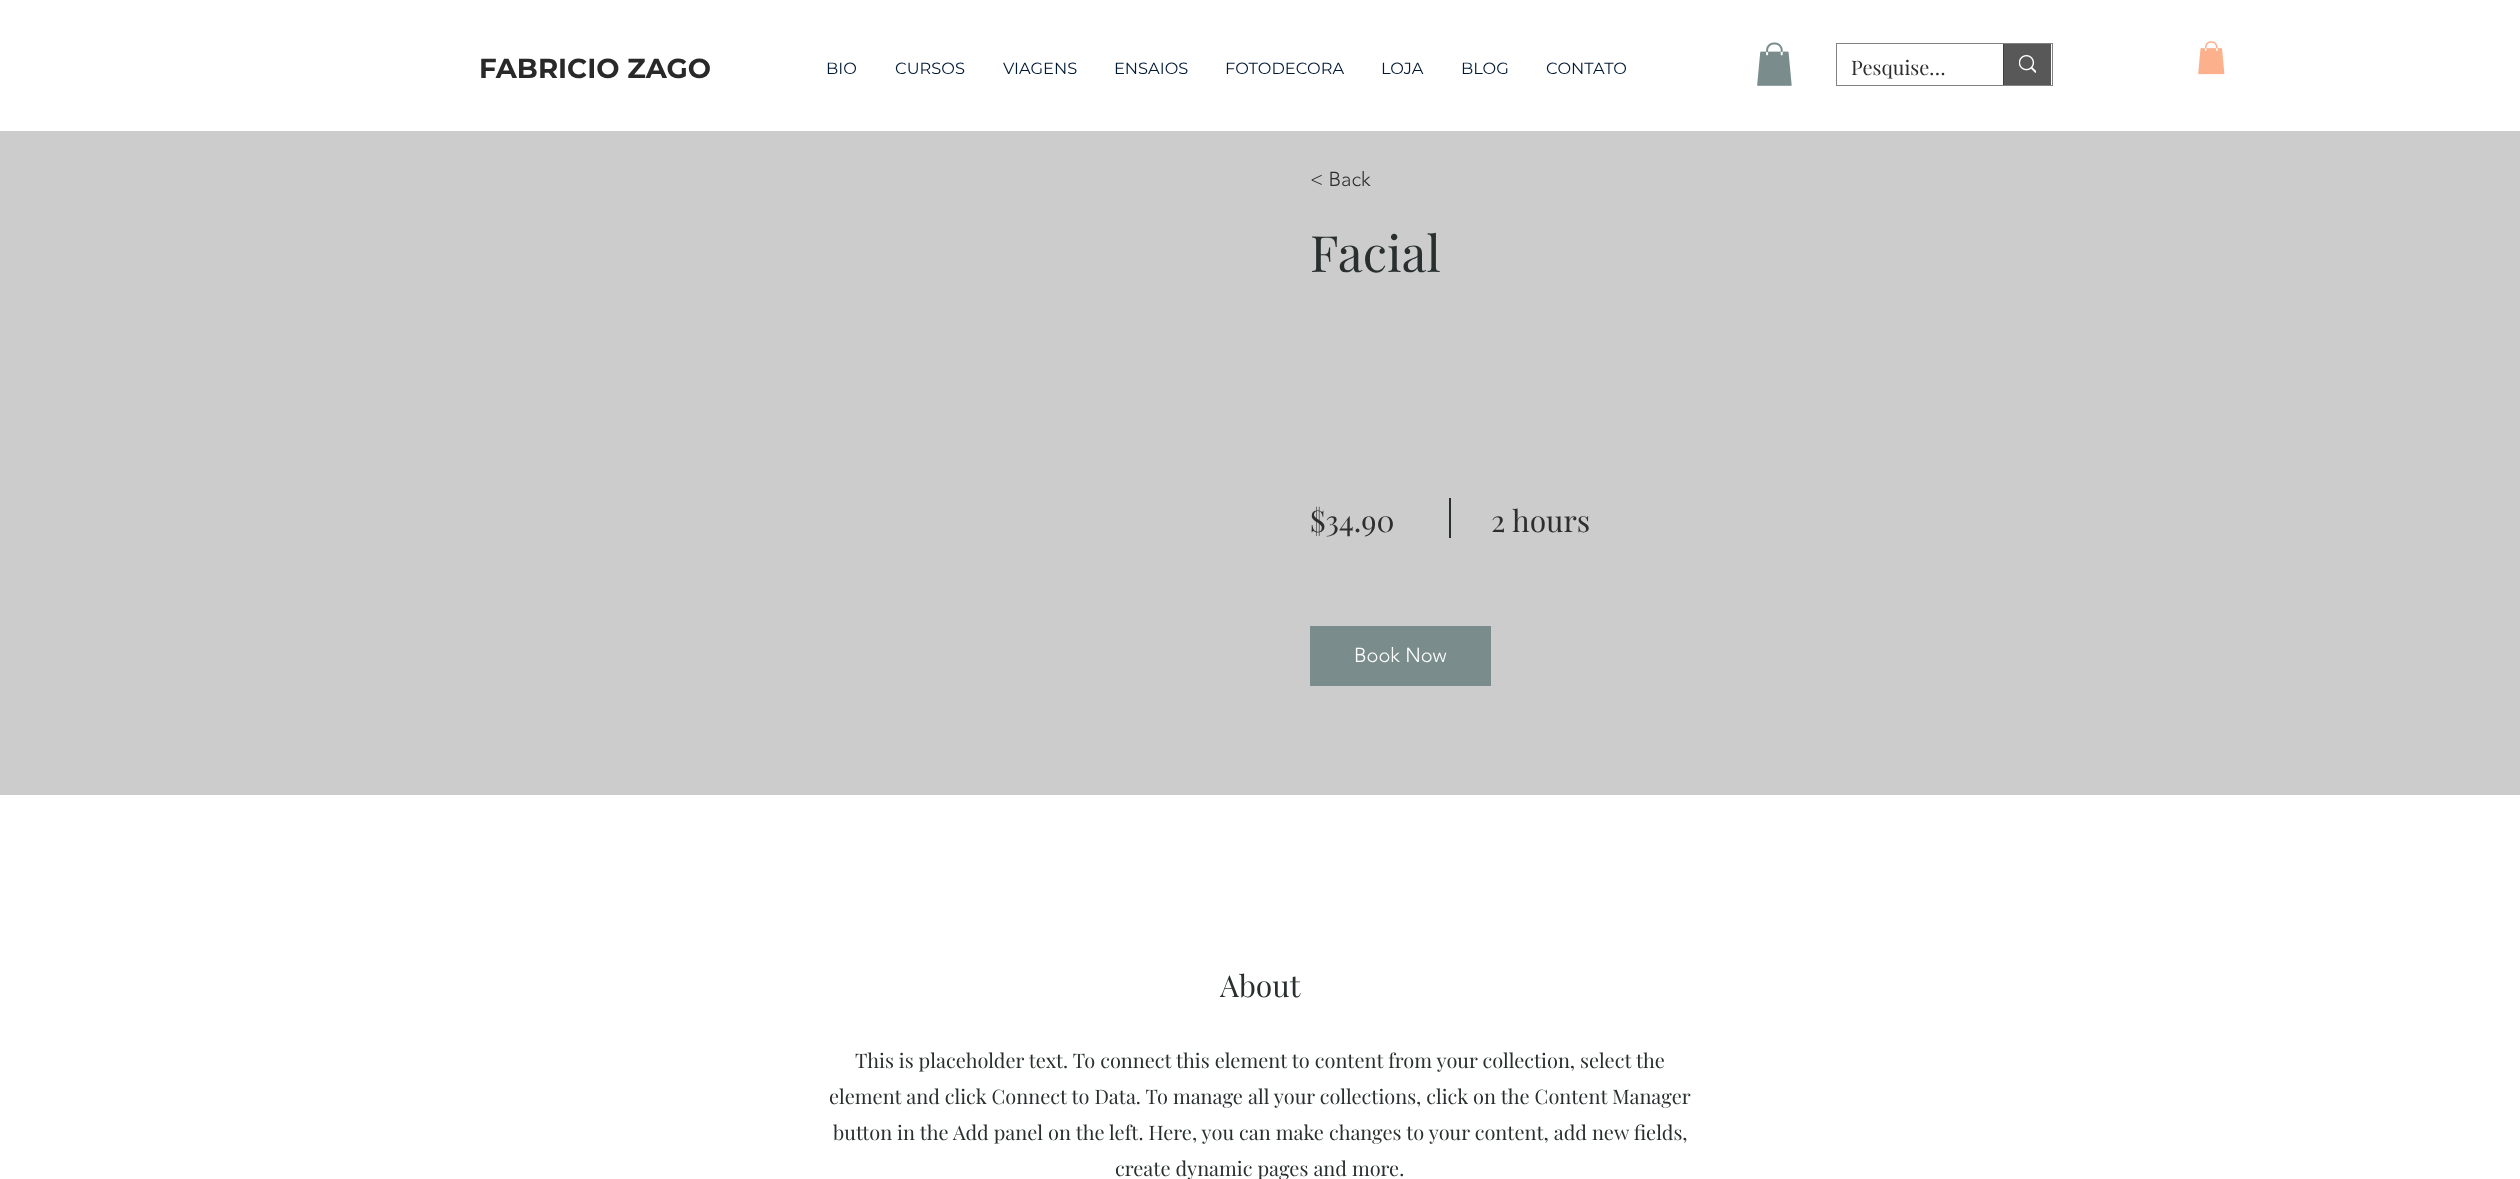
async function draw(canvas) {
  canvas.width = 2520;
  canvas.height = 1179;
  const ctx = canvas.getContext('2d');
  ctx.miterLimit = 4;
  ctx.fontKerning = 'normal';
  function label(s, x, y, font, color) {
    ctx.font = font;
    ctx.fillStyle = color;
    ctx.fillText(s, x, y);
  }
  function rect(x, y, w, h, color) {
    ctx.fillStyle = color;
    ctx.fillRect(x, y, w, h);
  }
  async function image(src, x, y, w, h) {
    const img = new Image();
    img.src = src;
    await img.decode();
    ctx.drawImage(img, x, y, w, h);
  }

  rect(0, 0, 2520, 1179, '#fff');
  label('FABRICIO ZAGO', 479, 78, 'bold 27.5px Montserrat', '#292929');
  label('BIO', 826, 74, '16.25px Montserrat', '#001a33');
  label('CURSOS', 895, 74, '16.25px Montserrat', '#001a33');
  label('VIAGENS', 1003, 74, '16.25px Montserrat', '#001a33');
  label('ENSAIOS', 1114, 74, '16.25px Montserrat', '#001a33');
  label('FOTODECORA', 1225, 74, '16.25px Montserrat', '#001a33');
  label('LOJA', 1381, 74, '16.25px Montserrat', '#001a33');
  label('BLOG', 1461, 74, '16.25px Montserrat', '#001a33');
  label('CONTATO', 1546, 74, '16.25px Montserrat', '#001a33');
  await image('assets/img1.png', 1757, 42, 35, 44);
  ctx.strokeStyle = '#828282';
  ctx.strokeRect(1836.5, 43.5, 216, 42);
  label('Pesquise…', 1851, 75, '20px Playfair Display', '#2f2e2e');
  rect(2004, 44, 47, 41, '#595858');
  rect(2003, 44, 1, 41, '#403f3f');
  await image('assets/img2.png', 2019, 55, 17, 18);
  await image('assets/img3.png', 2198, 41, 27, 34);
  rect(0, 131, 2520, 664, '#ccc');
  label('< Back', 1310, 186, '300 20px "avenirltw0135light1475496"', '#2f2e2e');
  label('Facial', 1310, 272, '50px Playfair Display', '#292f2f');
  label('$34.90', 1310, 532, '30px Playfair Display', '#2f2e2e');
  rect(1449, 498, 2, 40, '#292f2f');
  label('2', 1491, 532, '30px Playfair Display', '#2f2e2e');
  label('hours', 1512, 532, '30px Playfair Display', '#2f2e2e');
  rect(1310, 626, 181, 60, '#7a8c8c');
  label('Book Now', 1354, 662, '300 20px "avenirltw0135light1475496"', '#fff');
  label('About', 1220, 997, '30px Playfair Display', '#292f2f');
  label('This is placeholder text. To connect this element to content from your collection, select the', 855, 1068, '20px Playfair Display', '#292f2f');
  label('element and click Connect to Data. To manage all your collections, click on the Content Manager', 829, 1104, '20px Playfair Display', '#292f2f');
  label('button in the Add panel on the left. Here, you can make changes to your content, add new fields,', 833, 1140, '20px Playfair Display', '#292f2f');
  label('create dynamic pages and more.', 1115, 1176, '20px Playfair Display', '#292f2f');
}

draw(document.querySelector('canvas'));
